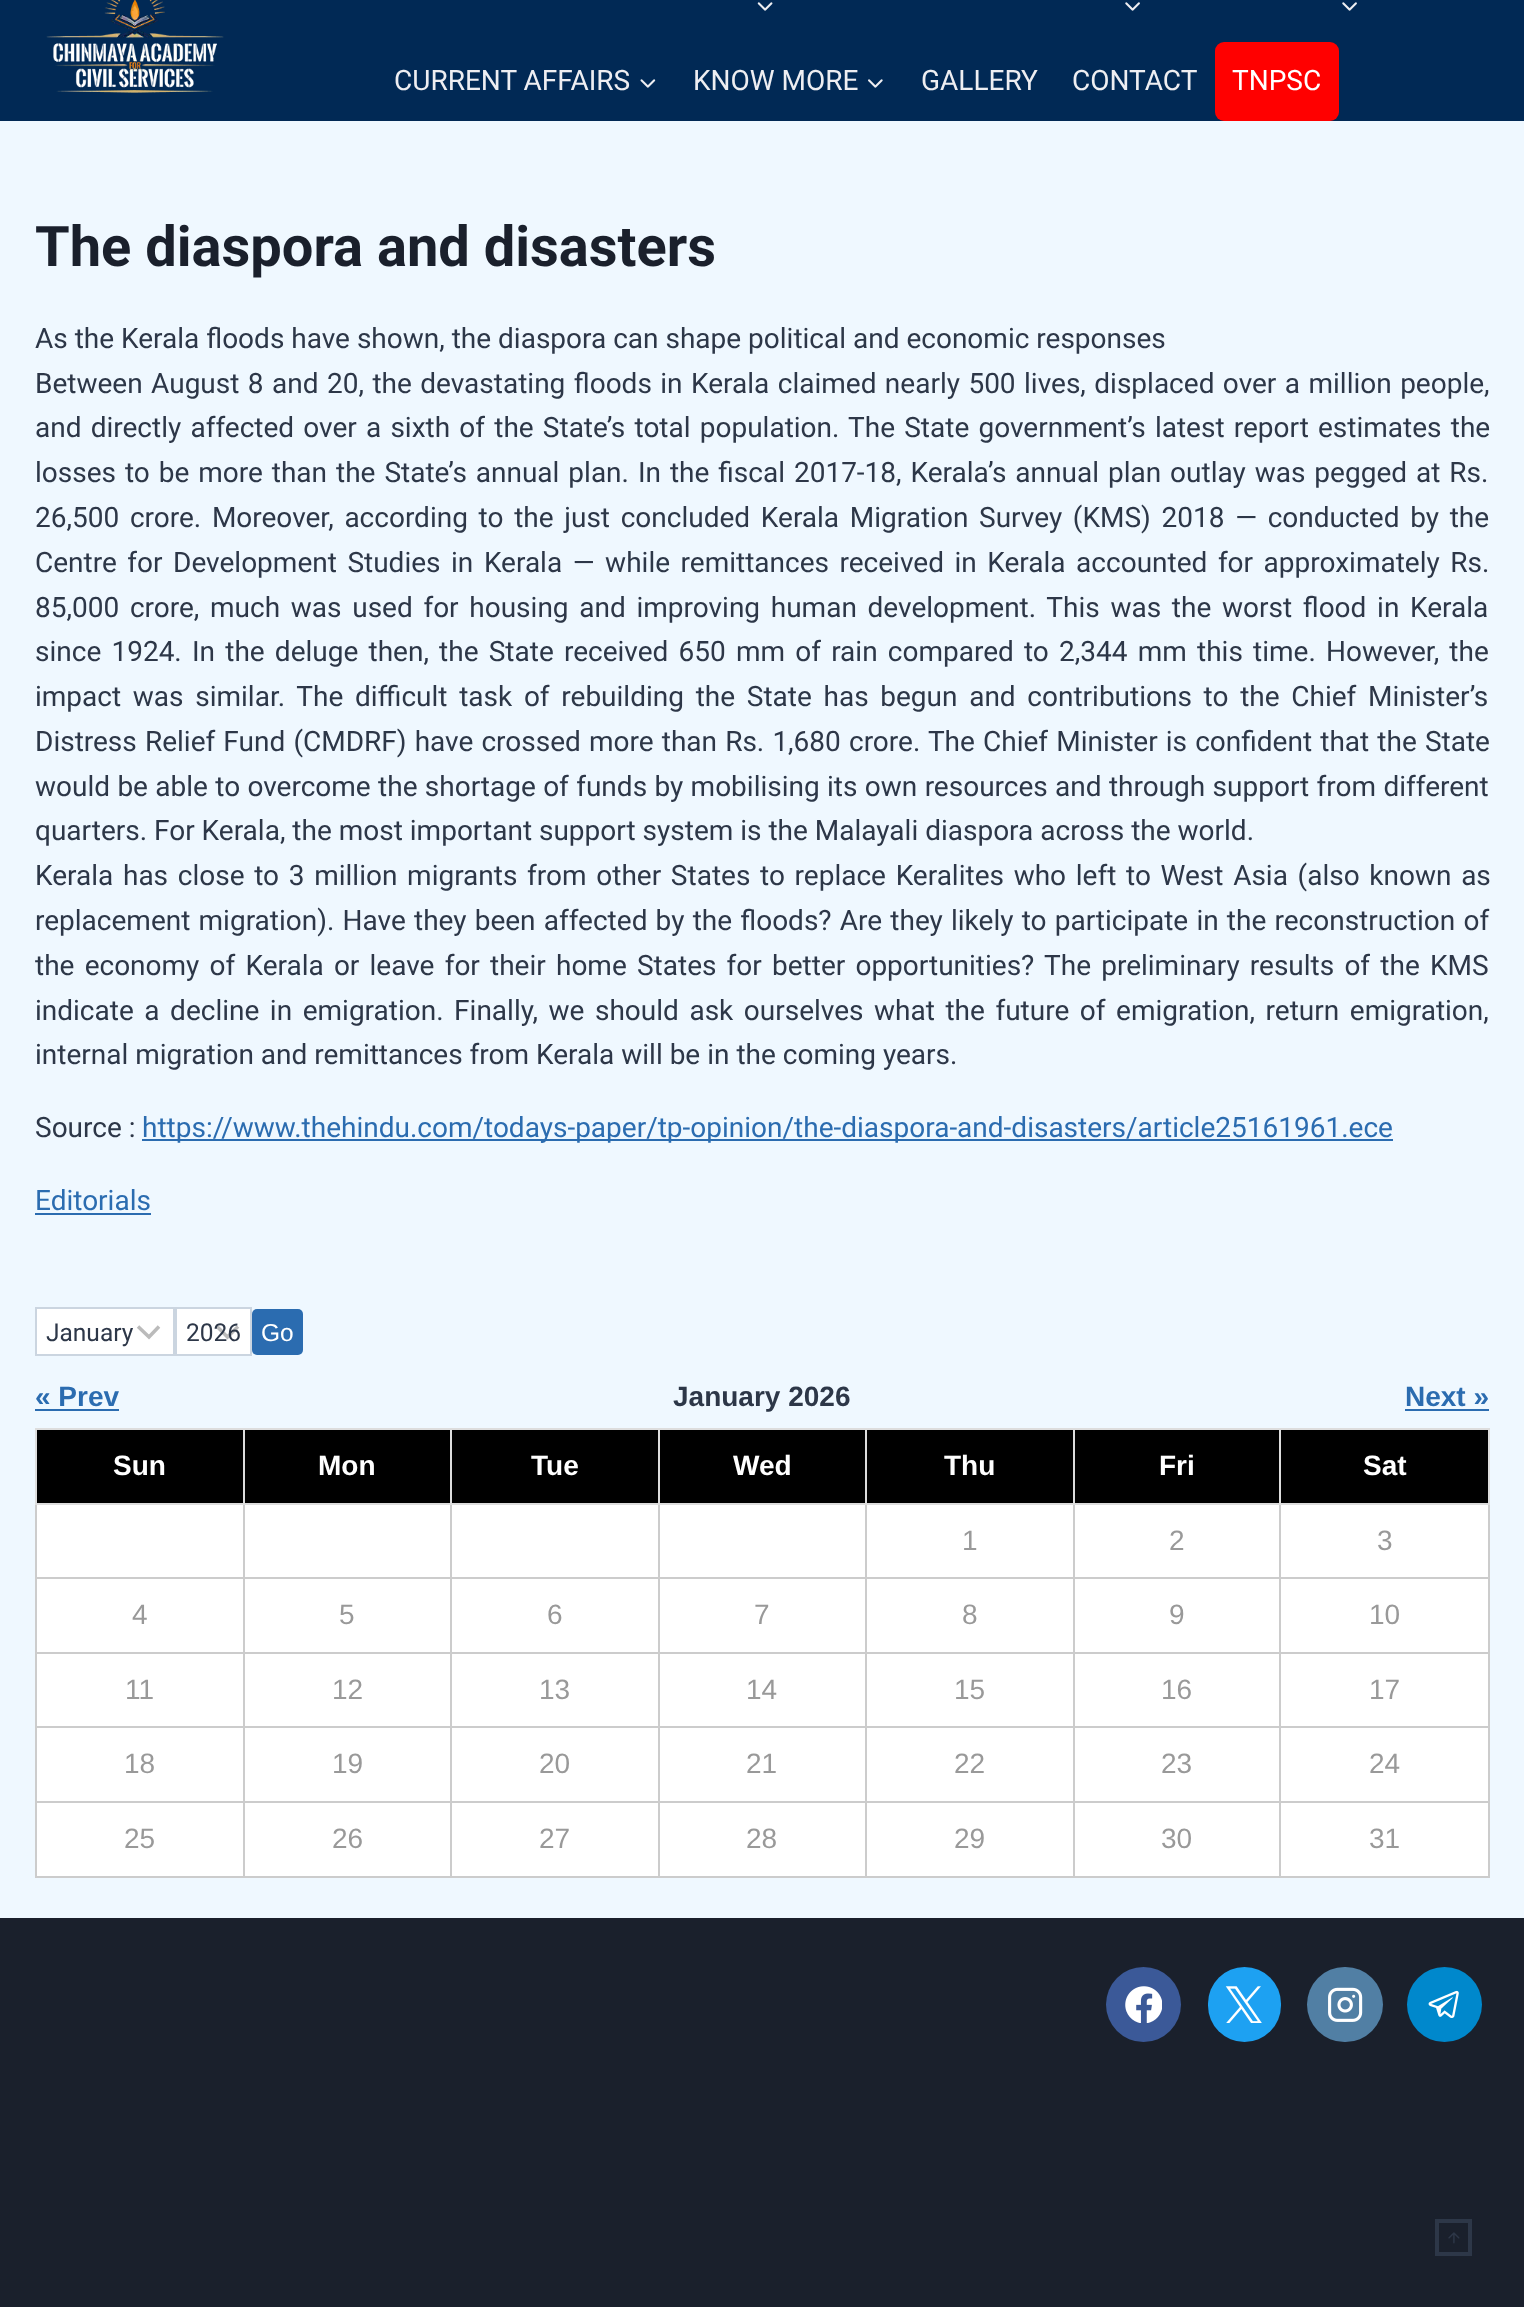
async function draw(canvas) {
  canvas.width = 1524;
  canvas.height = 2307;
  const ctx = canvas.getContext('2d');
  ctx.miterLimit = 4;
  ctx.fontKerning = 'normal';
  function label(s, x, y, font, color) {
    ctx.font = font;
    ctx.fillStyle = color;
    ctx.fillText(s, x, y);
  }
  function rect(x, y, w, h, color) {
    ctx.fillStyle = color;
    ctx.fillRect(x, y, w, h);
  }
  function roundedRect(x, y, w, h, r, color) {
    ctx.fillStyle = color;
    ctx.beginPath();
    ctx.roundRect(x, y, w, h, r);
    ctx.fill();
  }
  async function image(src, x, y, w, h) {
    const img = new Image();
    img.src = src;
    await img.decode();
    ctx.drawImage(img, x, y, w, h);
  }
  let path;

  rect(0, 0, 1524, 2307, '#eff8ff');
  rect(0, 0, 1524, 121, '#012955');
  await image('assets/img1.png', 46, 0, 178, 93);
  await image('assets/img2.png', 757, 2, 16, 9);
  await image('assets/img3.png', 1125, 2, 15, 9);
  await image('assets/img3.png', 1342, 2, 15, 9);
  label('CURRENT AFFAIRS', 394, 90, '28px Roboto', '#eeeef2');
  await image('assets/img4.png', 640, 79, 16, 9);
  label('KNOW MORE', 693, 90, '28px Roboto', '#eeeef2');
  await image('assets/img5.png', 868, 79, 15, 9);
  label('GALLERY', 921, 90, '28px Roboto', '#eeeef2');
  label('CONTACT', 1072, 90, '28px Roboto', '#eeeef2');
  roundedRect(1215, 42, 124, 79, 9, '#f00');
  label('TNPSC', 1232, 90, '28px Roboto', '#fff');
  label('The diaspora and disasters', 35, 266, 'bold 56px Roboto', '#1a202c');
  label('As the Kerala floods have shown, the diaspora can shape political and economic responses', 35, 348, '28px Roboto', '#2d3748');
  ctx.wordSpacing = '1.5px';
  label('Between August 8 and 20, the devastating floods in Kerala claimed nearly 500 lives, displaced over a million people,', 35, 393, '28px Roboto', '#2d3748');
  ctx.wordSpacing = '2.25px';
  label('and directly affected over a sixth of the State’s total population. The State government’s latest report estimates the', 35, 437, '28px Roboto', '#2d3748');
  ctx.wordSpacing = '2px';
  label('losses to be more than the State’s annual plan. In the fiscal 2017-18, Kerala’s annual plan outlay was pegged at Rs.', 35, 482, '28px Roboto', '#2d3748');
  ctx.wordSpacing = '3.75px';
  label('26,500 crore. Moreover, according to the just concluded Kerala Migration Survey (KMS) 2018 — conducted by the', 35, 527, '28px Roboto', '#2d3748');
  ctx.wordSpacing = '3.6px';
  label('Centre for Development Studies in Kerala — while remittances received in Kerala accounted for approximately Rs.', 35, 572, '28px Roboto', '#2d3748');
  ctx.wordSpacing = '3.75px';
  label('85,000 crore, much was used for housing and improving human development. This was the worst flood in Kerala', 35, 617, '28px Roboto', '#2d3748');
  ctx.wordSpacing = '3.25px';
  label('since 1924. In the deluge then, the State received 650 mm of rain compared to 2,344 mm this time. However, the', 35, 661, '28px Roboto', '#2d3748');
  ctx.wordSpacing = '4.75px';
  label('impact was similar. The difficult task of rebuilding the State has begun and contributions to the Chief Minister’s', 35, 706, '28px Roboto', '#2d3748');
  ctx.wordSpacing = '1.2px';
  label('Distress Relief Fund (CMDRF) have crossed more than Rs. 1,680 crore. The Chief Minister is confident that the State', 35, 751, '28px Roboto', '#2d3748');
  ctx.wordSpacing = '0.4px';
  label('would be able to overcome the shortage of funds by mobilising its own resources and through support from different', 35, 796, '28px Roboto', '#2d3748');
  ctx.wordSpacing = '0px';
  label('quarters. For Kerala, the most important support system is the Malayali diaspora across the world.', 35, 840, '28px Roboto', '#2d3748');
  ctx.wordSpacing = '2.75px';
  label('Kerala has close to 3 million migrants from other States to replace Keralites who left to West Asia (also known as', 35, 885, '28px Roboto', '#2d3748');
  ctx.wordSpacing = '1.25px';
  label('replacement migration). Have they been affected by the floods? Are they likely to participate in the reconstruction of', 35, 930, '28px Roboto', '#2d3748');
  ctx.wordSpacing = '3.25px';
  label('the economy of Kerala or leave for their home States for better opportunities? The preliminary results of the KMS', 35, 975, '28px Roboto', '#2d3748');
  ctx.wordSpacing = '3.6px';
  label('indicate a decline in emigration. Finally, we should ask ourselves what the future of emigration, return emigration,', 35, 1020, '28px Roboto', '#2d3748');
  ctx.wordSpacing = '0px';
  label('internal migration and remittances from Kerala will be in the coming years.', 35, 1064, '28px Roboto', '#2d3748');
  label('Source :', 35, 1137, '28px Roboto', '#2d3748');
  rect(142, 1139, 1251, 2, '#2b6cb0');
  label('https://www.thehindu.com/todays-paper/tp-opinion/the-diaspora-and-disasters/article25161961.ece', 142, 1137, '28px Roboto', '#2b6cb0');
  label('Editorials', 35, 1210, '28px Roboto', '#2b6cb0');
  rect(35, 1213, 116, 2, '#2b6cb0');
  rect(37, 1309, 136, 45, '#fff');
  path = new Path2D('M138 1326.5L149 1337L159 1326.5');
  ctx.strokeStyle = '#bbb';
  ctx.lineWidth = 3.5;
  ctx.stroke(path);
  ctx.strokeStyle = '#cbd5e0';
  ctx.lineWidth = 2;
  ctx.strokeRect(36, 1308, 138, 47);
  label('January', 46, 1341, '24.5px Roboto', '#2d3748');
  rect(177, 1309, 73, 45, '#fff');
  path = new Path2D('M217 1326.5L227.5 1337L238 1326.5');
  ctx.strokeStyle = '#bbb';
  ctx.lineWidth = 3.5;
  ctx.stroke(path);
  ctx.strokeStyle = '#cbd5e0';
  ctx.lineWidth = 2;
  ctx.strokeRect(176, 1308, 75, 47);
  label('2026', 186, 1341, '24.5px Roboto', '#2d3748');
  roundedRect(252, 1309, 51, 46, 5, '#2b6cb0');
  label('Go', 261, 1341, '24.5px Liberation Sans', '#fff');
  label('« Prev', 35, 1406, 'bold 28px Liberation Sans', '#2b6cb0');
  rect(35, 1409, 84, 2, '#2b6cb0');
  label('January 2026', 673, 1406, 'bold 28px Liberation Sans', '#2d3748');
  label('Next »', 1405, 1406, 'bold 28px Liberation Sans', '#2b6cb0');
  rect(1405, 1409, 84, 2, '#2b6cb0');
  rect(37, 1430, 206, 73, '#000');
  rect(1279, 1428, 210, 2, '#ddd');
  rect(1279, 1577, 210, 2, '#ccc');
  rect(1279, 1652, 210, 2, '#ccc');
  rect(1279, 1726, 210, 2, '#ccc');
  rect(1279, 1801, 210, 2, '#ccc');
  rect(1488, 1801, 2, 77, '#ccc');
  rect(1488, 1726, 2, 77, '#ccc');
  rect(1488, 1652, 2, 75, '#ccc');
  rect(1488, 1503, 2, 151, '#ccc');
  rect(1488, 1428, 2, 77, '#ddd');
  rect(1279, 1876, 210, 2, '#ccc');
  rect(1279, 1801, 2, 77, '#ccc');
  rect(1073, 1801, 208, 2, '#ccc');
  rect(1279, 1726, 2, 77, '#ccc');
  rect(1073, 1726, 208, 2, '#ccc');
  rect(1279, 1652, 2, 75, '#ccc');
  rect(1073, 1652, 208, 2, '#ccc');
  rect(1279, 1577, 2, 77, '#ccc');
  rect(1073, 1577, 208, 2, '#ccc');
  rect(1279, 1503, 2, 76, '#ccc');
  rect(1279, 1503, 210, 2, '#ddd');
  rect(1279, 1428, 2, 77, '#ddd');
  rect(1073, 1428, 208, 2, '#ddd');
  rect(1073, 1876, 208, 2, '#ccc');
  rect(1073, 1801, 2, 77, '#ccc');
  rect(865, 1801, 210, 2, '#ccc');
  rect(1073, 1726, 2, 77, '#ccc');
  rect(865, 1726, 210, 2, '#ccc');
  rect(1073, 1652, 2, 75, '#ccc');
  rect(865, 1652, 210, 2, '#ccc');
  rect(1073, 1577, 2, 77, '#ccc');
  rect(865, 1577, 210, 2, '#ccc');
  rect(1073, 1503, 2, 76, '#ccc');
  rect(1073, 1503, 208, 2, '#ddd');
  rect(1073, 1428, 2, 77, '#ddd');
  rect(865, 1428, 210, 2, '#ddd');
  rect(865, 1876, 210, 2, '#ccc');
  rect(865, 1801, 2, 77, '#ccc');
  rect(658, 1801, 208, 2, '#ccc');
  rect(865, 1726, 2, 77, '#ccc');
  rect(658, 1726, 208, 2, '#ccc');
  rect(865, 1652, 2, 75, '#ccc');
  rect(658, 1652, 208, 2, '#ccc');
  rect(865, 1577, 2, 77, '#ccc');
  rect(658, 1577, 208, 2, '#ccc');
  rect(865, 1503, 2, 76, '#ccc');
  rect(865, 1503, 210, 2, '#ddd');
  rect(865, 1428, 2, 77, '#ddd');
  rect(658, 1428, 208, 2, '#ddd');
  rect(658, 1876, 208, 2, '#ccc');
  rect(658, 1801, 2, 77, '#ccc');
  rect(450, 1801, 210, 2, '#ccc');
  rect(658, 1726, 2, 77, '#ccc');
  rect(450, 1726, 210, 2, '#ccc');
  rect(658, 1652, 2, 75, '#ccc');
  rect(450, 1652, 210, 2, '#ccc');
  rect(658, 1577, 2, 77, '#ccc');
  rect(450, 1577, 210, 2, '#ccc');
  rect(658, 1503, 2, 76, '#ccc');
  rect(658, 1503, 208, 2, '#ddd');
  rect(658, 1428, 2, 77, '#ddd');
  rect(450, 1428, 210, 2, '#ddd');
  rect(450, 1876, 210, 2, '#ccc');
  rect(450, 1801, 2, 77, '#ccc');
  rect(243, 1801, 209, 2, '#ccc');
  rect(450, 1726, 2, 77, '#ccc');
  rect(243, 1726, 209, 2, '#ccc');
  rect(450, 1652, 2, 75, '#ccc');
  rect(243, 1652, 209, 2, '#ccc');
  rect(450, 1577, 2, 77, '#ccc');
  rect(243, 1577, 209, 2, '#ccc');
  rect(450, 1503, 2, 76, '#ccc');
  rect(450, 1503, 210, 2, '#ddd');
  rect(450, 1428, 2, 77, '#ddd');
  rect(243, 1428, 209, 2, '#ddd');
  rect(243, 1876, 209, 2, '#ccc');
  rect(243, 1801, 2, 77, '#ccc');
  rect(35, 1801, 210, 2, '#ccc');
  rect(243, 1726, 2, 77, '#ccc');
  rect(35, 1726, 210, 2, '#ccc');
  rect(243, 1652, 2, 75, '#ccc');
  rect(35, 1652, 210, 2, '#ccc');
  rect(243, 1577, 2, 77, '#ccc');
  rect(35, 1577, 210, 2, '#ccc');
  rect(243, 1503, 2, 76, '#ccc');
  rect(243, 1503, 209, 2, '#ddd');
  rect(243, 1428, 2, 77, '#ddd');
  rect(35, 1428, 210, 2, '#ddd');
  rect(35, 1876, 210, 2, '#ccc');
  rect(35, 1801, 2, 77, '#ccc');
  rect(35, 1726, 2, 77, '#ccc');
  rect(35, 1652, 2, 75, '#ccc');
  rect(35, 1503, 2, 151, '#ccc');
  rect(35, 1503, 210, 2, '#ddd');
  rect(35, 1428, 2, 77, '#ddd');
  label('Sun', 113, 1475, 'bold 28px Liberation Sans', '#fff');
  rect(245, 1430, 205, 73, '#000');
  label('Mon', 318, 1475, 'bold 28px Liberation Sans', '#fff');
  rect(452, 1430, 206, 73, '#000');
  label('Tue', 531, 1475, 'bold 28px Liberation Sans', '#fff');
  rect(660, 1430, 205, 73, '#000');
  label('Wed', 733, 1475, 'bold 28px Liberation Sans', '#fff');
  rect(867, 1430, 206, 73, '#000');
  label('Thu', 944, 1475, 'bold 28px Liberation Sans', '#fff');
  rect(1075, 1430, 204, 73, '#000');
  label('Fri', 1159, 1475, 'bold 28px Liberation Sans', '#fff');
  rect(1281, 1430, 207, 73, '#000');
  label('Sat', 1363, 1475, 'bold 28px Liberation Sans', '#fff');
  rect(37, 1505, 206, 72, '#fff');
  rect(245, 1505, 205, 72, '#fff');
  rect(452, 1505, 206, 72, '#fff');
  rect(660, 1505, 205, 72, '#fff');
  rect(867, 1505, 206, 72, '#fff');
  label('1', 962, 1550, '28px Liberation Sans', '#999');
  rect(1075, 1505, 204, 72, '#fff');
  label('2', 1169, 1550, '28px Liberation Sans', '#999');
  rect(1281, 1505, 207, 72, '#fff');
  label('3', 1377, 1550, '28px Liberation Sans', '#999');
  rect(37, 1579, 206, 73, '#fff');
  label('4', 132, 1624, '28px Liberation Sans', '#999');
  rect(245, 1579, 205, 73, '#fff');
  label('5', 339, 1624, '28px Liberation Sans', '#999');
  rect(452, 1579, 206, 73, '#fff');
  label('6', 547, 1624, '28px Liberation Sans', '#999');
  rect(660, 1579, 205, 73, '#fff');
  label('7', 754, 1624, '28px Liberation Sans', '#999');
  rect(867, 1579, 206, 73, '#fff');
  label('8', 962, 1624, '28px Liberation Sans', '#999');
  rect(1075, 1579, 204, 73, '#fff');
  label('9', 1169, 1624, '28px Liberation Sans', '#999');
  rect(1281, 1579, 207, 73, '#fff');
  label('10', 1369, 1624, '28px Liberation Sans', '#999');
  rect(37, 1654, 206, 72, '#fff');
  label('11', 125, 1699, '28px Liberation Sans', '#999');
  rect(245, 1654, 205, 72, '#fff');
  label('12', 332, 1699, '28px Liberation Sans', '#999');
  rect(452, 1654, 206, 72, '#fff');
  label('13', 539, 1699, '28px Liberation Sans', '#999');
  rect(660, 1654, 205, 72, '#fff');
  label('14', 746, 1699, '28px Liberation Sans', '#999');
  rect(867, 1654, 206, 72, '#fff');
  label('15', 954, 1699, '28px Liberation Sans', '#999');
  rect(1075, 1654, 204, 72, '#fff');
  label('16', 1161, 1699, '28px Liberation Sans', '#999');
  rect(1281, 1654, 207, 72, '#fff');
  label('17', 1369, 1699, '28px Liberation Sans', '#999');
  rect(37, 1728, 206, 73, '#fff');
  label('18', 124, 1773, '28px Liberation Sans', '#999');
  rect(245, 1728, 205, 73, '#fff');
  label('19', 332, 1773, '28px Liberation Sans', '#999');
  rect(452, 1728, 206, 73, '#fff');
  label('20', 539, 1773, '28px Liberation Sans', '#999');
  rect(660, 1728, 205, 73, '#fff');
  label('21', 746, 1773, '28px Liberation Sans', '#999');
  rect(867, 1728, 206, 73, '#fff');
  label('22', 954, 1773, '28px Liberation Sans', '#999');
  rect(1075, 1728, 204, 73, '#fff');
  label('23', 1161, 1773, '28px Liberation Sans', '#999');
  rect(1281, 1728, 207, 73, '#fff');
  label('24', 1369, 1773, '28px Liberation Sans', '#999');
  rect(37, 1803, 206, 73, '#fff');
  label('25', 124, 1848, '28px Liberation Sans', '#999');
  rect(245, 1803, 205, 73, '#fff');
  label('26', 332, 1848, '28px Liberation Sans', '#999');
  rect(452, 1803, 206, 73, '#fff');
  label('27', 539, 1848, '28px Liberation Sans', '#999');
  rect(660, 1803, 205, 73, '#fff');
  label('28', 746, 1848, '28px Liberation Sans', '#999');
  rect(867, 1803, 206, 73, '#fff');
  label('29', 954, 1848, '28px Liberation Sans', '#999');
  rect(1075, 1803, 204, 73, '#fff');
  label('30', 1161, 1848, '28px Liberation Sans', '#999');
  rect(1281, 1803, 207, 73, '#fff');
  label('31', 1369, 1848, '28px Liberation Sans', '#999');
  rect(0, 1918, 1524, 389, '#1a202c');
  ctx.fillStyle = '#3b5998';
  ctx.beginPath();
  ctx.arc(1143.5, 2004.5, 37.5, 0, 2 * Math.PI);
  ctx.fill();
  await image('assets/img6.png', 1125, 1986, 37, 37);
  roundedRect(1208, 1967, 73, 75, 36.5, '#1da1f2');
  await image('assets/img7.png', 1225, 1986, 37, 37);
  roundedRect(1307, 1967, 76, 75, 37.5, '#517fa4');
  await image('assets/img8.png', 1328, 1987, 35, 35);
  ctx.fillStyle = '#08c';
  ctx.beginPath();
  ctx.arc(1444.5, 2004.5, 37.5, 0, 2 * Math.PI);
  ctx.fill();
  await image('assets/img9.png', 1428, 1990, 31, 28);
  ctx.strokeStyle = '#2d3748';
  ctx.lineWidth = 4;
  ctx.strokeRect(1437, 2221, 33, 33);
  await image('assets/img10.png', 1448, 2232, 12, 12);
}

draw(document.querySelector('canvas'));
